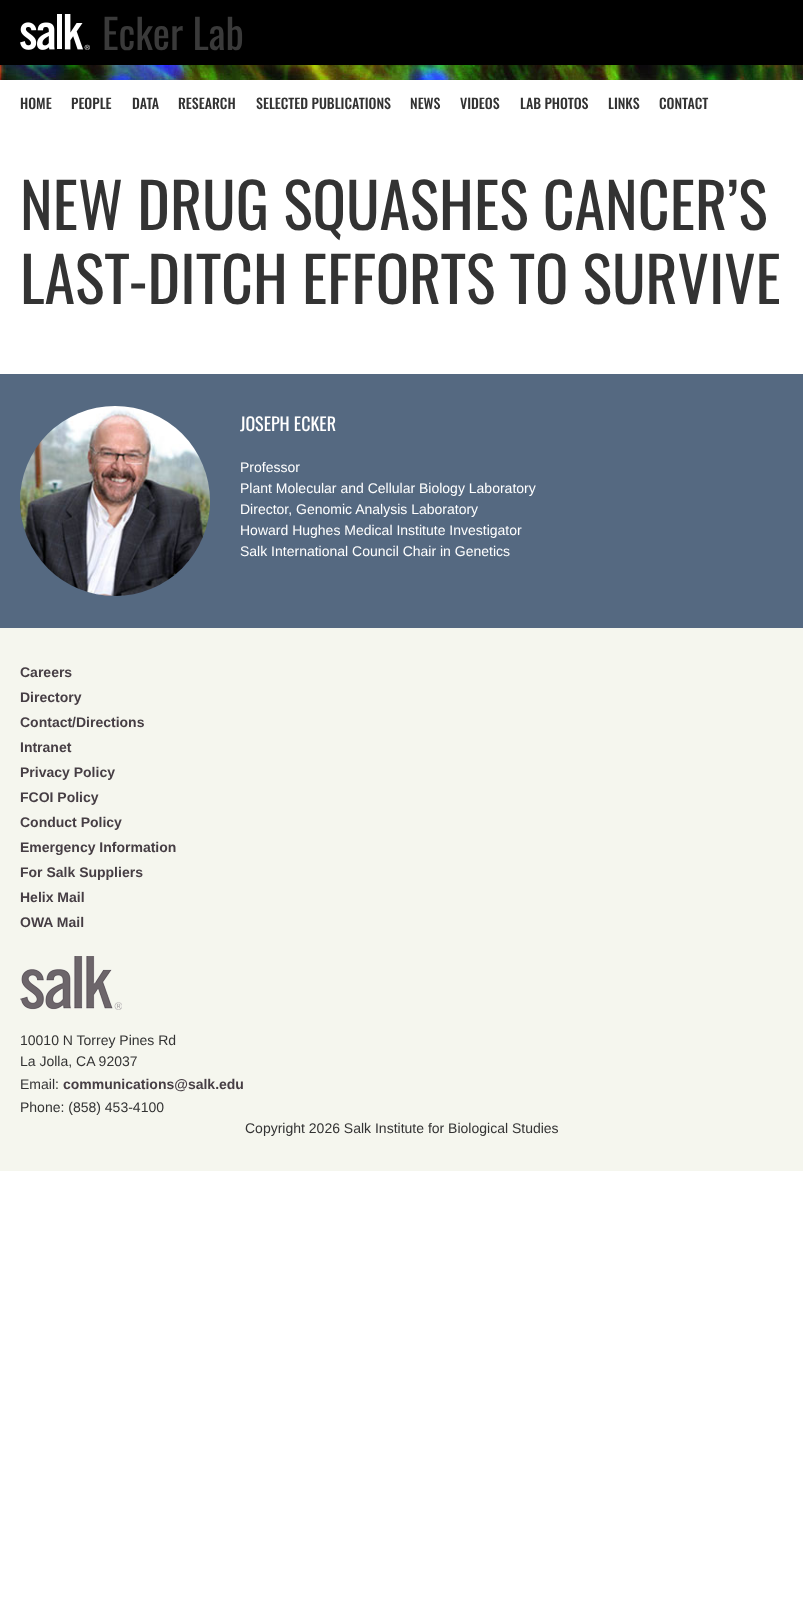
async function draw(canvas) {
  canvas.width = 803;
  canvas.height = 1623;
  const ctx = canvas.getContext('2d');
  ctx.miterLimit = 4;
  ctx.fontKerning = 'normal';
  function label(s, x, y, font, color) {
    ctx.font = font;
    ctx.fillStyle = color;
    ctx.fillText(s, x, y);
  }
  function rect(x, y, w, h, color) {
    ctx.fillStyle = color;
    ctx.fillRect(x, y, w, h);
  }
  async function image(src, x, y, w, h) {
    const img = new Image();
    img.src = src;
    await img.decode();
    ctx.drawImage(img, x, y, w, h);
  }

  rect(0, 0, 803, 1623, '#fff');
  rect(0, 0, 803, 65, '#000');
  await image('assets/img1.png', 20, 14, 70, 36);
  label('Ecker Lab', 102, 50, '41px Oswald', '#3a3a3a');
  await image('assets/img2.png', 0, 65, 803, 15);
  label('HOME', 20, 109, '500 14px Oswald', '#333');
  label('PEOPLE', 71, 109, '500 14px Oswald', '#333');
  label('DATA', 132, 109, '500 14px Oswald', '#333');
  label('RESEARCH', 178, 109, '500 14px Oswald', '#333');
  label('SELECTED PUBLICATIONS', 256, 109, '500 14px Oswald', '#333');
  label('NEWS', 410, 109, '500 14px Oswald', '#333');
  label('VIDEOS', 460, 109, '500 14px Oswald', '#333');
  label('LAB PHOTOS', 520, 109, '500 14px Oswald', '#333');
  label('LINKS', 608, 109, '500 14px Oswald', '#333');
  label('CONTACT', 659, 109, '500 14px Oswald', '#333');
  label('NEW DRUG SQUASHES CANCER’S', 20, 230, '62px Oswald', '#333');
  label('LAST-DITCH EFFORTS TO SURVIVE', 20, 304, '62px Oswald', '#333');
  rect(0, 374, 803, 254, '#556981');
  await image('assets/img3.png', 20, 406, 190, 190);
  label('JOSEPH ECKER', 240, 431, '18px Oswald', '#fff');
  label('Professor', 240, 472, '14px Liberation Sans', '#fff');
  label('Plant Molecular and Cellular Biology Laboratory', 240, 493, '14px Liberation Sans', '#fff');
  label('Director, Genomic Analysis Laboratory', 240, 514, '14px Liberation Sans', '#fff');
  label('Howard Hughes Medical Institute Investigator', 240, 535, '14px Liberation Sans', '#fff');
  label('Salk International Council Chair in Genetics', 240, 556, '14px Liberation Sans', '#fff');
  rect(0, 628, 803, 543, '#f5f6ee');
  label('Careers', 20, 677, 'bold 14px Liberation Sans', '#463e44');
  label('Directory', 20, 702, 'bold 14px Liberation Sans', '#463e44');
  label('Contact/Directions', 20, 727, 'bold 14px Liberation Sans', '#463e44');
  label('Intranet', 20, 752, 'bold 14px Liberation Sans', '#463e44');
  label('Privacy Policy', 20, 777, 'bold 14px Liberation Sans', '#463e44');
  label('FCOI Policy', 20, 802, 'bold 14px Liberation Sans', '#463e44');
  label('Conduct Policy', 20, 827, 'bold 14px Liberation Sans', '#463e44');
  label('Emergency Information', 20, 852, 'bold 14px Liberation Sans', '#463e44');
  label('For Salk Suppliers', 20, 877, 'bold 14px Liberation Sans', '#463e44');
  label('Helix Mail', 20, 902, 'bold 14px Liberation Sans', '#463e44');
  label('OWA Mail', 20, 927, 'bold 14px Liberation Sans', '#463e44');
  await image('assets/img4.png', 20, 956, 102, 54);
  label('10010 N Torrey Pines Rd', 20, 1045, '14px Liberation Sans', '#333');
  label('La Jolla, CA 92037', 20, 1066, '14px Liberation Sans', '#333');
  label('Email:', 20, 1089, '14px Liberation Sans', '#333');
  label('communications@salk.edu', 63, 1089, 'bold 14px Liberation Sans', '#463e44');
  label('Phone: (858) 453-4100', 20, 1112, '14px Liberation Sans', '#333');
  label('Copyright 2026 Salk Institute for Biological Studies', 245, 1133, '14px Liberation Sans', '#333');
}

draw(document.querySelector('canvas'));
